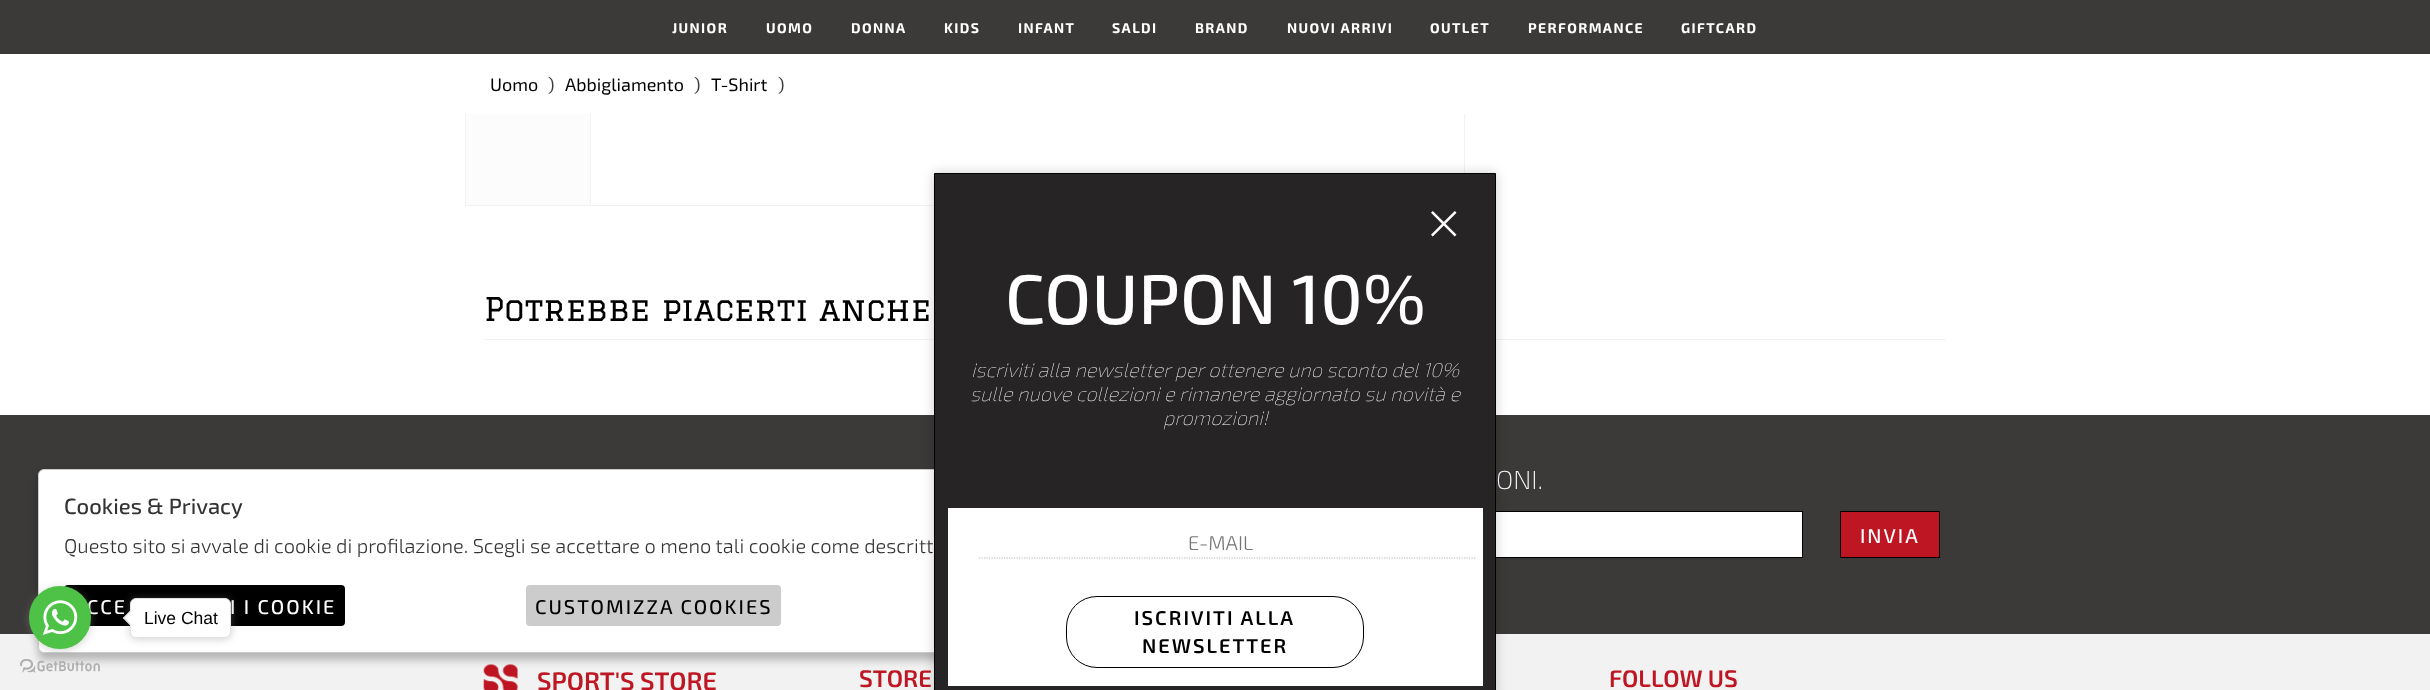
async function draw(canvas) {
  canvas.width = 2430;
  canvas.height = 690;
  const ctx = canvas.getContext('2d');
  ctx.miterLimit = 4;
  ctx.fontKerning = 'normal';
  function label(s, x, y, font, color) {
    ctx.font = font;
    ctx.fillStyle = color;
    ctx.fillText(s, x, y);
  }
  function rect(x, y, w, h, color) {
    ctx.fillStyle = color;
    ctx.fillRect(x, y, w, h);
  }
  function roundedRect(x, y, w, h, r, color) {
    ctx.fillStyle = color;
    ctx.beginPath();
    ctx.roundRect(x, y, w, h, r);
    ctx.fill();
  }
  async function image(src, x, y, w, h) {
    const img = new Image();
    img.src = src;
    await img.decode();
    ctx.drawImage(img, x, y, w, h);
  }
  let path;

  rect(0, 0, 2430, 690, '#fff');
  ctx.strokeStyle = '#f2f2f2';
  ctx.strokeRect(465.5, -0.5, 999, 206);
  rect(0, 0, 2430, 54, '#3b3a38');
  ctx.letterSpacing = '1.4px';
  label('JUNIOR', 672, 33, 'bold 14px "Exo 2"', '#fff');
  label('UOMO', 766, 33, 'bold 14px "Exo 2"', '#fff');
  label('DONNA', 851, 33, 'bold 14px "Exo 2"', '#fff');
  label('KIDS', 944, 33, 'bold 14px "Exo 2"', '#fff');
  label('INFANT', 1018, 33, 'bold 14px "Exo 2"', '#fff');
  label('SALDI', 1112, 33, 'bold 14px "Exo 2"', '#fff');
  label('BRAND', 1195, 33, 'bold 14px "Exo 2"', '#fff');
  label('NUOVI ARRIVI', 1287, 33, 'bold 14px "Exo 2"', '#fff');
  label('OUTLET', 1430, 33, 'bold 14px "Exo 2"', '#fff');
  label('PERFORMANCE', 1528, 33, 'bold 14px "Exo 2"', '#fff');
  label('GIFTCARD', 1681, 33, 'bold 14px "Exo 2"', '#fff');
  rect(466, 114, 124, 91, '#fcfcfc');
  rect(590, 114, 1, 91, '#f2f2f2');
  rect(465, 54, 1000, 60, '#fff');
  ctx.letterSpacing = '0px';
  label('Uomo', 490, 91, '18px "Exo 2"', '#000');
  label(')', 548, 91, '18px "Exo 2"', '#3b3a38');
  label('Abbigliamento', 565, 91, '18px "Exo 2"', '#000');
  label(')', 694, 91, '18px "Exo 2"', '#3b3a38');
  label('T-Shirt', 711, 91, '18px "Exo 2"', '#000');
  label(')', 778, 91, '18px "Exo 2"', '#3b3a38');
  rect(484, 339, 1462, 1, '#f2f2f2');
  label('Potrebbe piacerti anche', 484, 321, '32px Graduate', '#000');
  rect(0, 634, 2430, 56, '#f2f2f2');
  rect(0, 415, 2430, 219, '#3b3a38');
  label('ONI.', 1496, 489, '200 26px "Exo 2"', '#fff');
  rect(1496, 512, 306, 45, '#fff');
  ctx.strokeStyle = '#000';
  ctx.strokeRect(478.5, 511.5, 1324, 46);
  ctx.fillStyle = '#be1622';
  ctx.beginPath();
  ctx.rect(1840.5, 511.5, 99, 46);
  ctx.fill();
  ctx.stroke();
  ctx.letterSpacing = '2px';
  label('INVIA', 1860, 543, '500 20px "Exo 2"', '#fff');
  await image('assets/img1.png', 483, 664, 35, 26);
  ctx.letterSpacing = '0px';
  label('SPORT\'S STORE', 537, 690, '600 25.25px "Exo 2"', '#be1622');
  label('STORE', 859, 687, '600 24px "Exo 2"', '#be1622');
  label('FOLLOW US', 1609, 687, '600 24px "Exo 2"', '#be1622');
  ctx.fillStyle = '#00000040';
  ctx.filter = 'blur(4px)';
  ctx.beginPath();
  ctx.roundRect(38, 476, 1361, 184, 6);
  ctx.fill();
  ctx.filter = 'none';
  ctx.fillStyle = '#fff';
  ctx.beginPath();
  ctx.roundRect(38.5, 469.5, 1360, 183, 5.5);
  ctx.fill();
  ctx.strokeStyle = '#ccc';
  ctx.stroke();
  label('Cookies & Privacy', 64, 514, '500 22px "Exo 2"', '#333');
  label('Questo sito si avvale di cookie di profilazione. Scegli se accettare o meno tali cookie come descritt', 64, 553, '300 20px "Exo 2"', '#333');
  roundedRect(64, 585, 281, 41, 4, '#000');
  ctx.letterSpacing = '2px';
  label('CCE', 87, 614, '500 20px "Exo 2"', '#fff');
  label('I I COOKIE', 230, 614, '500 20px "Exo 2"', '#fff');
  roundedRect(526, 585, 255, 41, 4, '#ccc');
  label('CUSTOMIZZA COOKIES', 535, 614, '500 20px "Exo 2"', '#000');
  ctx.fillStyle = '#00000033';
  ctx.filter = 'blur(6px)';
  ctx.beginPath();
  ctx.rect(934, 173, 562, 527);
  ctx.fill();
  ctx.filter = 'none';
  ctx.fillStyle = '#262424';
  ctx.beginPath();
  ctx.rect(934.5, 173.5, 561, 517);
  ctx.fill();
  ctx.strokeStyle = '#000';
  ctx.stroke();
  await image('assets/img2.png', 1431, 211, 26, 26);
  ctx.letterSpacing = '0px';
  label('COUPON 10%', 1005, 324, '500 70px "Exo 2"', '#fff');
  label('iscriviti alla newsletter per ottenere uno sconto del 10%', 971, 377, 'italic 100 20px "Exo 2"', '#fff');
  label('sulle nuove collezioni e rimanere aggiornato su novità e', 970, 401, 'italic 100 20px "Exo 2"', '#fff');
  label('promozioni!', 1163, 425, 'italic 100 20px "Exo 2"', '#fff');
  rect(948, 508, 535, 178, '#fff');
  path = new Path2D('M979 558H1476');
  ctx.strokeStyle = '#b7b7b7';
  ctx.lineWidth = 1.2;
  ctx.setLineDash([1.25, 1.25]);
  ctx.stroke(path);
  label('E-MAIL', 1188, 550, '300 20px "Exo 2"', '#757575');
  ctx.beginPath();
  ctx.roundRect(1066.5, 596.5, 297, 71, 30.5);
  ctx.strokeStyle = '#000';
  ctx.lineWidth = 1;
  ctx.setLineDash([]);
  ctx.stroke();
  ctx.letterSpacing = '2px';
  label('ISCRIVITI ALLA', 1134, 625, '600 20px "Exo 2"', '#000');
  label('NEWSLETTER', 1142, 653, '600 20px "Exo 2"', '#000');
  await image('assets/img4.png', 20, 659, 80, 14);
  ctx.fillStyle = '#88888866';
  ctx.filter = 'blur(4.5px)';
  ctx.beginPath();
  ctx.roundRect(29, 588, 62, 62, 31);
  ctx.fill();
  ctx.filter = 'none';
  roundedRect(29, 586, 62, 63, 31, '#4dc247');
  await image('assets/img3.png', 42, 600, 36, 35);
  ctx.fillStyle = '#88888866';
  ctx.filter = 'blur(4.5px)';
  ctx.beginPath();
  ctx.roundRect(130, 599, 101, 40, 6);
  ctx.fill();
  ctx.filter = 'none';
  ctx.fillStyle = '#fff';
  ctx.beginPath();
  ctx.roundRect(130.5, 598.5, 100, 39, 5.5);
  ctx.fill();
  ctx.strokeStyle = '#e2e2e2';
  ctx.stroke();
  path = new Path2D('M123 618L130 611L137 618L130 625Z');
  ctx.fill(path);
  ctx.fillStyle = '#e2e2e2';
  path = new Path2D('M123 618L130 611L131 611.5L124 619Z');
  ctx.fill(path);
  path = new Path2D('M123 618L124 617L131 624L130 625Z');
  ctx.fill(path);
  ctx.letterSpacing = '0px';
  label('Live Chat', 144, 624, '17.5px Liberation Sans', '#000');
}

draw(document.querySelector('canvas'));
